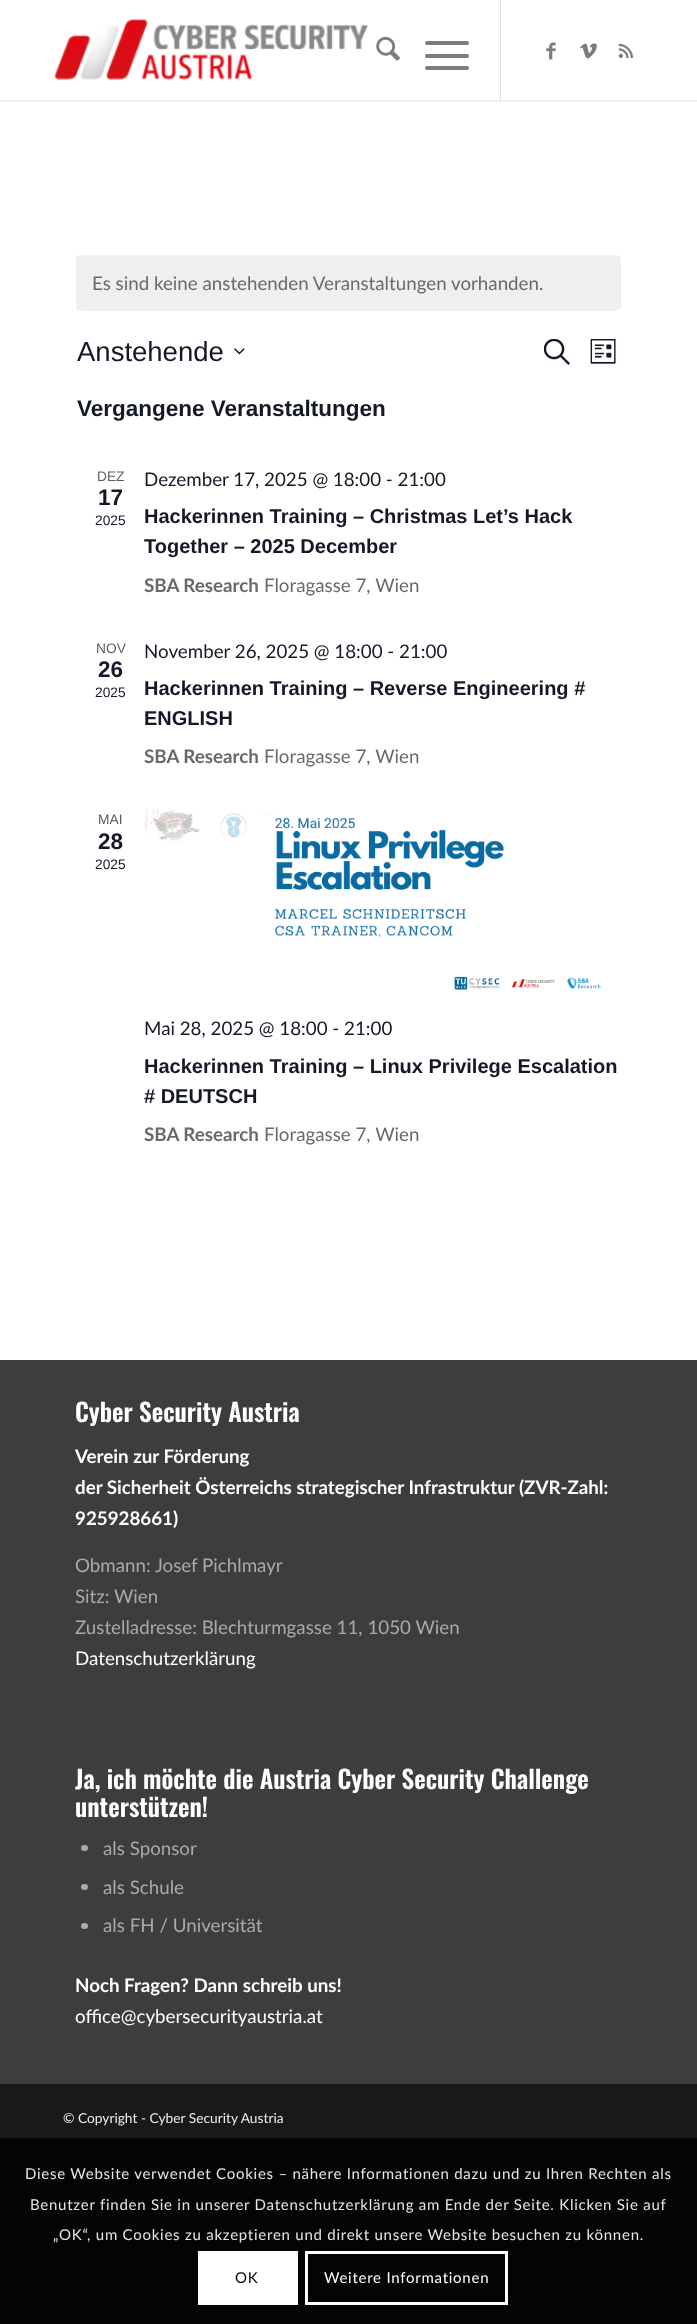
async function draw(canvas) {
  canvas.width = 697;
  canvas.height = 2324;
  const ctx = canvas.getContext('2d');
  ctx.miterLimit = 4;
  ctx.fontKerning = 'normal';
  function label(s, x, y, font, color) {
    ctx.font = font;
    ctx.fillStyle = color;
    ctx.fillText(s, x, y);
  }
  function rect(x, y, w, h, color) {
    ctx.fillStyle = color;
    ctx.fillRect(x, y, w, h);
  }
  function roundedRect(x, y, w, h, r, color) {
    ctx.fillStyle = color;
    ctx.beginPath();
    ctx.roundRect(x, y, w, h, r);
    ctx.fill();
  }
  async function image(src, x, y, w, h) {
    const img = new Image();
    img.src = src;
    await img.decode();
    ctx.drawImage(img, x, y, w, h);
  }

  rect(0, 0, 697, 2324, '#fff');
  ctx.save();
  ctx.beginPath();
  ctx.rect(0, 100, 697, 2);
  ctx.clip();
  ctx.fillStyle = '#0000001a';
  ctx.filter = 'blur(1px)';
  ctx.beginPath();
  ctx.rect(-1, -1, 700, 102);
  ctx.fill();
  ctx.filter = 'none';
  ctx.restore();
  await image('assets/img1.png', 54, 19, 315, 61);
  rect(500, 0, 1, 100, '#e1e1e1');
  await image('assets/img2.png', 376, 36, 24, 25);
  roundedRect(425, 54, 44, 4, 2, '#7d7d7d');
  roundedRect(425, 41, 44, 4, 2, '#7d7d7d');
  roundedRect(425, 66, 44, 4, 2, '#7d7d7d');
  await image('assets/img3.png', 546, 42, 10, 18);
  await image('assets/img4.png', 580, 43, 17, 16);
  await image('assets/img5.png', 618, 43, 15, 16);
  roundedRect(76, 255, 545, 56, 5, '#efeff0');
  label('Es sind keine anstehenden Veranstaltungen vorhanden.', 92, 290, '18.75px Lato', '#696969');
  label('Anstehende', 77, 361, '27.5px Liberation Sans', '#141827');
  await image('assets/img6.png', 234, 348, 11, 7);
  await image('assets/img7.png', 544, 339, 26, 26);
  await image('assets/img8.png', 590, 339, 26, 25);
  label('Vergangene Veranstaltungen', 77, 416, 'bold 22.5px Liberation Sans', '#141827');
  label('DEZ', 97, 481, '13.75px Liberation Sans', '#5d5d5d');
  label('17', 98, 505, 'bold 22.5px Liberation Sans', '#141827');
  label('2025', 95, 525, '13.75px Liberation Sans', '#141827');
  label('Dezember 17, 2025 @ 18:00 - 21:00', 144, 486, '18.75px Lato', '#141827');
  label('Hackerinnen Training – Christmas Let’s Hack', 144, 523, 'bold 20px Liberation Sans', '#141827');
  label('Together – 2025 December', 144, 553, 'bold 20px Liberation Sans', '#141827');
  label('SBA Research', 144, 592, 'bold 18.75px Lato', '#696969');
  label('Floragasse 7, Wien', 264, 592, '18.75px Lato', '#696969');
  label('NOV', 96, 653, '13.75px Liberation Sans', '#5d5d5d');
  label('26', 98, 677, 'bold 22.5px Liberation Sans', '#141827');
  label('2025', 95, 697, '13.75px Liberation Sans', '#141827');
  label('November 26, 2025 @ 18:00 - 21:00', 144, 658, '18.75px Lato', '#141827');
  label('Hackerinnen Training – Reverse Engineering #', 144, 695, 'bold 20px Liberation Sans', '#141827');
  label('ENGLISH', 144, 725, 'bold 20px Liberation Sans', '#141827');
  label('SBA Research', 144, 763, 'bold 18.75px Lato', '#696969');
  label('Floragasse 7, Wien', 264, 763, '18.75px Lato', '#696969');
  label('MAI', 98, 824, '13.75px Liberation Sans', '#5d5d5d');
  label('28', 98, 849, 'bold 22.5px Liberation Sans', '#141827');
  label('2025', 95, 869, '13.75px Liberation Sans', '#141827');
  await image('assets/img9.png', 144, 809, 457, 181);
  label('Mai 28, 2025 @ 18:00 - 21:00', 144, 1035, '18.75px Lato', '#141827');
  label('Hackerinnen Training – Linux Privilege Escalation', 144, 1073, 'bold 20px Liberation Sans', '#141827');
  label('# DEUTSCH', 144, 1103, 'bold 20px Liberation Sans', '#141827');
  label('SBA Research', 144, 1141, 'bold 18.75px Lato', '#696969');
  label('Floragasse 7, Wien', 264, 1141, '18.75px Lato', '#696969');
  rect(0, 1360, 697, 724, '#3d3d3d');
  label('Cyber Security Austria', 75, 1422, '600 25px Oswald', '#fff');
  label('Verein zur Förderung', 75, 1463, 'bold 18.75px Lato', '#fff');
  label('der Sicherheit Österreichs strategischer Infrastruktur (ZVR-Zahl:', 75, 1494, 'bold 18.75px Lato', '#fff');
  label('925928661)', 75, 1525, 'bold 18.75px Lato', '#fff');
  label('Obmann: Josef Pichlmayr', 75, 1572, '18.75px Lato', '#aaa');
  label('Sitz: Wien', 75, 1603, '18.75px Lato', '#aaa');
  label('Zustelladresse: Blechturmgasse 11, 1050 Wien', 75, 1634, '18.75px Lato', '#aaa');
  label('Datenschutzerklärung', 75, 1665, '18.75px Lato', '#fff');
  label('Ja, ich möchte die Austria Cyber Security Challenge', 75, 1789, '600 25px Oswald', '#fff');
  label('unterstützen!', 75, 1817, '600 25px Oswald', '#fff');
  roundedRect(81, 1845, 7, 6, 3, '#aaa');
  label('als Sponsor', 103, 1855, '18.75px Lato', '#aaa');
  roundedRect(81, 1884, 7, 6, 3, '#aaa');
  label('als Schule', 103, 1894, '18.75px Lato', '#aaa');
  roundedRect(81, 1923, 7, 6, 3, '#aaa');
  label('als FH / Universität', 103, 1932, '18.75px Lato', '#aaa');
  label('Noch Fragen? Dann schreib uns!', 75, 1992, 'bold 18.75px Lato', '#fff');
  label('office@cybersecurityaustria.at', 75, 2023, '18.75px Lato', '#fff');
  rect(0, 2084, 697, 54, '#191919');
  label('© Copyright - Cyber Security Austria', 63, 2123, '13.75px Lato', '#eee');
  rect(0, 2138, 697, 186, '#040404');
  ctx.letterSpacing = '0.75px';
  label('Diese Website verwendet Cookies – nähere Informationen dazu und zu Ihren Rechten als', 25, 2179, '15px Lato', '#e6e6e6');
  label('Benutzer finden Sie in unserer Datenschutzerklärung am Ende der Seite. Klicken Sie auf', 30, 2210, '15px Lato', '#e6e6e6');
  label('„OK“, um Cookies zu akzeptieren und direkt unsere Website besuchen zu können.', 53, 2240, '15px Lato', '#e6e6e6');
  rect(198, 2251, 100, 54, '#fff');
  label('OK', 235, 2283, '15px Lato', '#000');
  ctx.strokeStyle = '#fff';
  ctx.lineWidth = 3;
  ctx.strokeRect(306.5, 2252.5, 200, 51);
  label('Weitere Informationen', 324, 2283, '15px Lato', '#fff');
}

draw(document.querySelector('canvas'));
